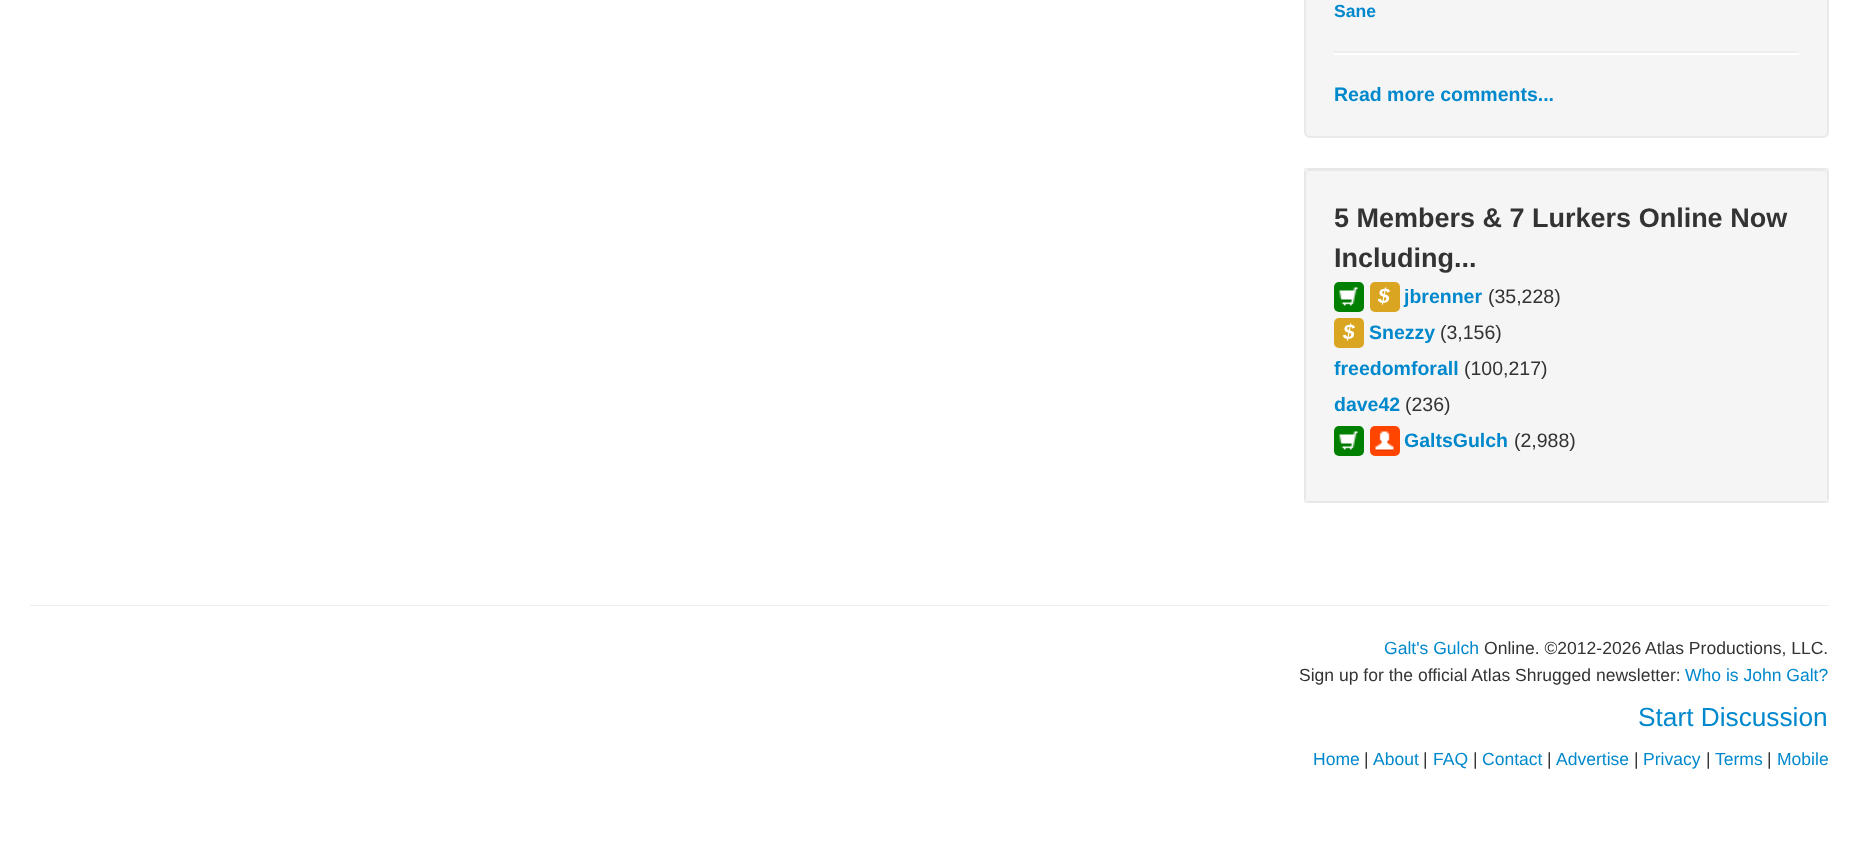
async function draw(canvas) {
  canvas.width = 1858;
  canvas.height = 858;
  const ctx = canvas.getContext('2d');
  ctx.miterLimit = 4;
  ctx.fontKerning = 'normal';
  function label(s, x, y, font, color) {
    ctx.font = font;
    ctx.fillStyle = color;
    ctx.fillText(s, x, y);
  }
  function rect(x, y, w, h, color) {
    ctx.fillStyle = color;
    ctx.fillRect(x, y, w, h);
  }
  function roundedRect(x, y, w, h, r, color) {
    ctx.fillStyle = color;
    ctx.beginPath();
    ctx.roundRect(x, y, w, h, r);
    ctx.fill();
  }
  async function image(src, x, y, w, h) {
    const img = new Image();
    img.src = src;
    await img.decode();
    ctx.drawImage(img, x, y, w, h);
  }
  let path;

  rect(0, 0, 1858, 858, '#fff');
  ctx.fillStyle = '#f5f5f5';
  ctx.beginPath();
  ctx.roundRect(1305, -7, 523, 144, 5);
  ctx.fill();
  ctx.strokeStyle = '#e9e9e9';
  ctx.lineWidth = 2;
  ctx.stroke();
  label('Sane', 1334, 17, 'bold 17.55px Liberation Sans', '#08c');
  rect(1334, 51, 465, 2, '#eee');
  rect(1334, 53, 465, 2, '#fff');
  label('Read more comments...', 1334, 101, 'bold 19.5px Liberation Sans', '#08c');
  roundedRect(1304, 168, 525, 335, 6, '#f5f5f5');
  ctx.fillStyle = '#e9e9e9';
  path = new Path2D('M1310 171H1822C1825 171 1827 173 1827 176V175C1827 172 1825 170 1822 170H1310C1307 170 1305 172 1305 175V176C1305 173 1307 171 1310 171Z');
  ctx.fill(path);
  ctx.strokeStyle = '#0000000d';
  ctx.strokeRect(1305, 169, 523, 333);
  label('5 Members & 7 Lurkers Online Now', 1334, 227, 'bold 27px Liberation Sans', '#333');
  label('Including...', 1334, 267, 'bold 27px Liberation Sans', '#333');
  roundedRect(1334, 282, 30, 30, 5, '#008000');
  await image('assets/img1.png', 1339, 287, 19, 20);
  roundedRect(1370, 282, 30, 30, 5, '#daa520');
  label('$', 1378, 303, 'italic bold 21px Liberation Sans', '#fff');
  label('jbrenner', 1404, 303, 'bold 19.5px Liberation Sans', '#08c');
  label('(35,228)', 1488, 303, '19.5px Liberation Sans', '#333');
  roundedRect(1334, 318, 30, 30, 5, '#daa520');
  label('$', 1343, 339, 'italic bold 21px Liberation Sans', '#fff');
  label('Snezzy', 1369, 339, 'bold 19.5px Liberation Sans', '#08c');
  label('(3,156)', 1440, 339, '19.5px Liberation Sans', '#333');
  label('freedomforall', 1334, 375, 'bold 19.5px Liberation Sans', '#08c');
  label('(100,217)', 1464, 375, '19.5px Liberation Sans', '#333');
  label('dave42', 1334, 411, 'bold 19.5px Liberation Sans', '#08c');
  label('(236)', 1405, 411, '19.5px Liberation Sans', '#333');
  roundedRect(1334, 426, 30, 30, 5, '#008000');
  await image('assets/img1.png', 1339, 431, 19, 20);
  roundedRect(1370, 426, 30, 30, 5, '#ff4500');
  await image('assets/img2.png', 1375, 431, 19, 20);
  label('GaltsGulch', 1404, 447, 'bold 19.5px Liberation Sans', '#08c');
  label('(2,988)', 1514, 447, '19.5px Liberation Sans', '#333');
  rect(30, 605, 1799, 1, '#eee');
  label('Galt\'s Gulch', 1384, 654, '17.55px Liberation Sans', '#08c');
  label('Online. ©2012-2026', 1484, 654, '17.55px Liberation Sans', '#333');
  label('Atlas Productions, LLC.', 1645, 654, '17.55px Liberation Sans', '#333');
  label('Sign up for the official Atlas Shrugged newsletter:', 1299, 681, '17.55px Liberation Sans', '#333');
  label('Who is John Galt?', 1685, 681, '17.55px Liberation Sans', '#08c');
  label('Start Discussion', 1638, 726, '26.25px Liberation Sans', '#08c');
  label('Home', 1313, 765, '17.55px Liberation Sans', '#08c');
  label('|', 1364, 765, '17.55px Liberation Sans', '#333');
  label('About', 1373, 765, '17.55px Liberation Sans', '#08c');
  label('|', 1423, 765, '17.55px Liberation Sans', '#333');
  label('FAQ', 1433, 765, '17.55px Liberation Sans', '#08c');
  label('|', 1473, 765, '17.55px Liberation Sans', '#333');
  label('Contact', 1482, 765, '17.55px Liberation Sans', '#08c');
  label('|', 1547, 765, '17.55px Liberation Sans', '#333');
  label('Advertise', 1556, 765, '17.55px Liberation Sans', '#08c');
  label('|', 1634, 765, '17.55px Liberation Sans', '#333');
  label('Privacy', 1643, 765, '17.55px Liberation Sans', '#08c');
  label('|', 1706, 765, '17.55px Liberation Sans', '#333');
  label('Terms', 1715, 765, '17.55px Liberation Sans', '#08c');
  label('|', 1767, 765, '17.55px Liberation Sans', '#333');
  label('Mobile', 1777, 765, '17.55px Liberation Sans', '#08c');
}

draw(document.querySelector('canvas'));
